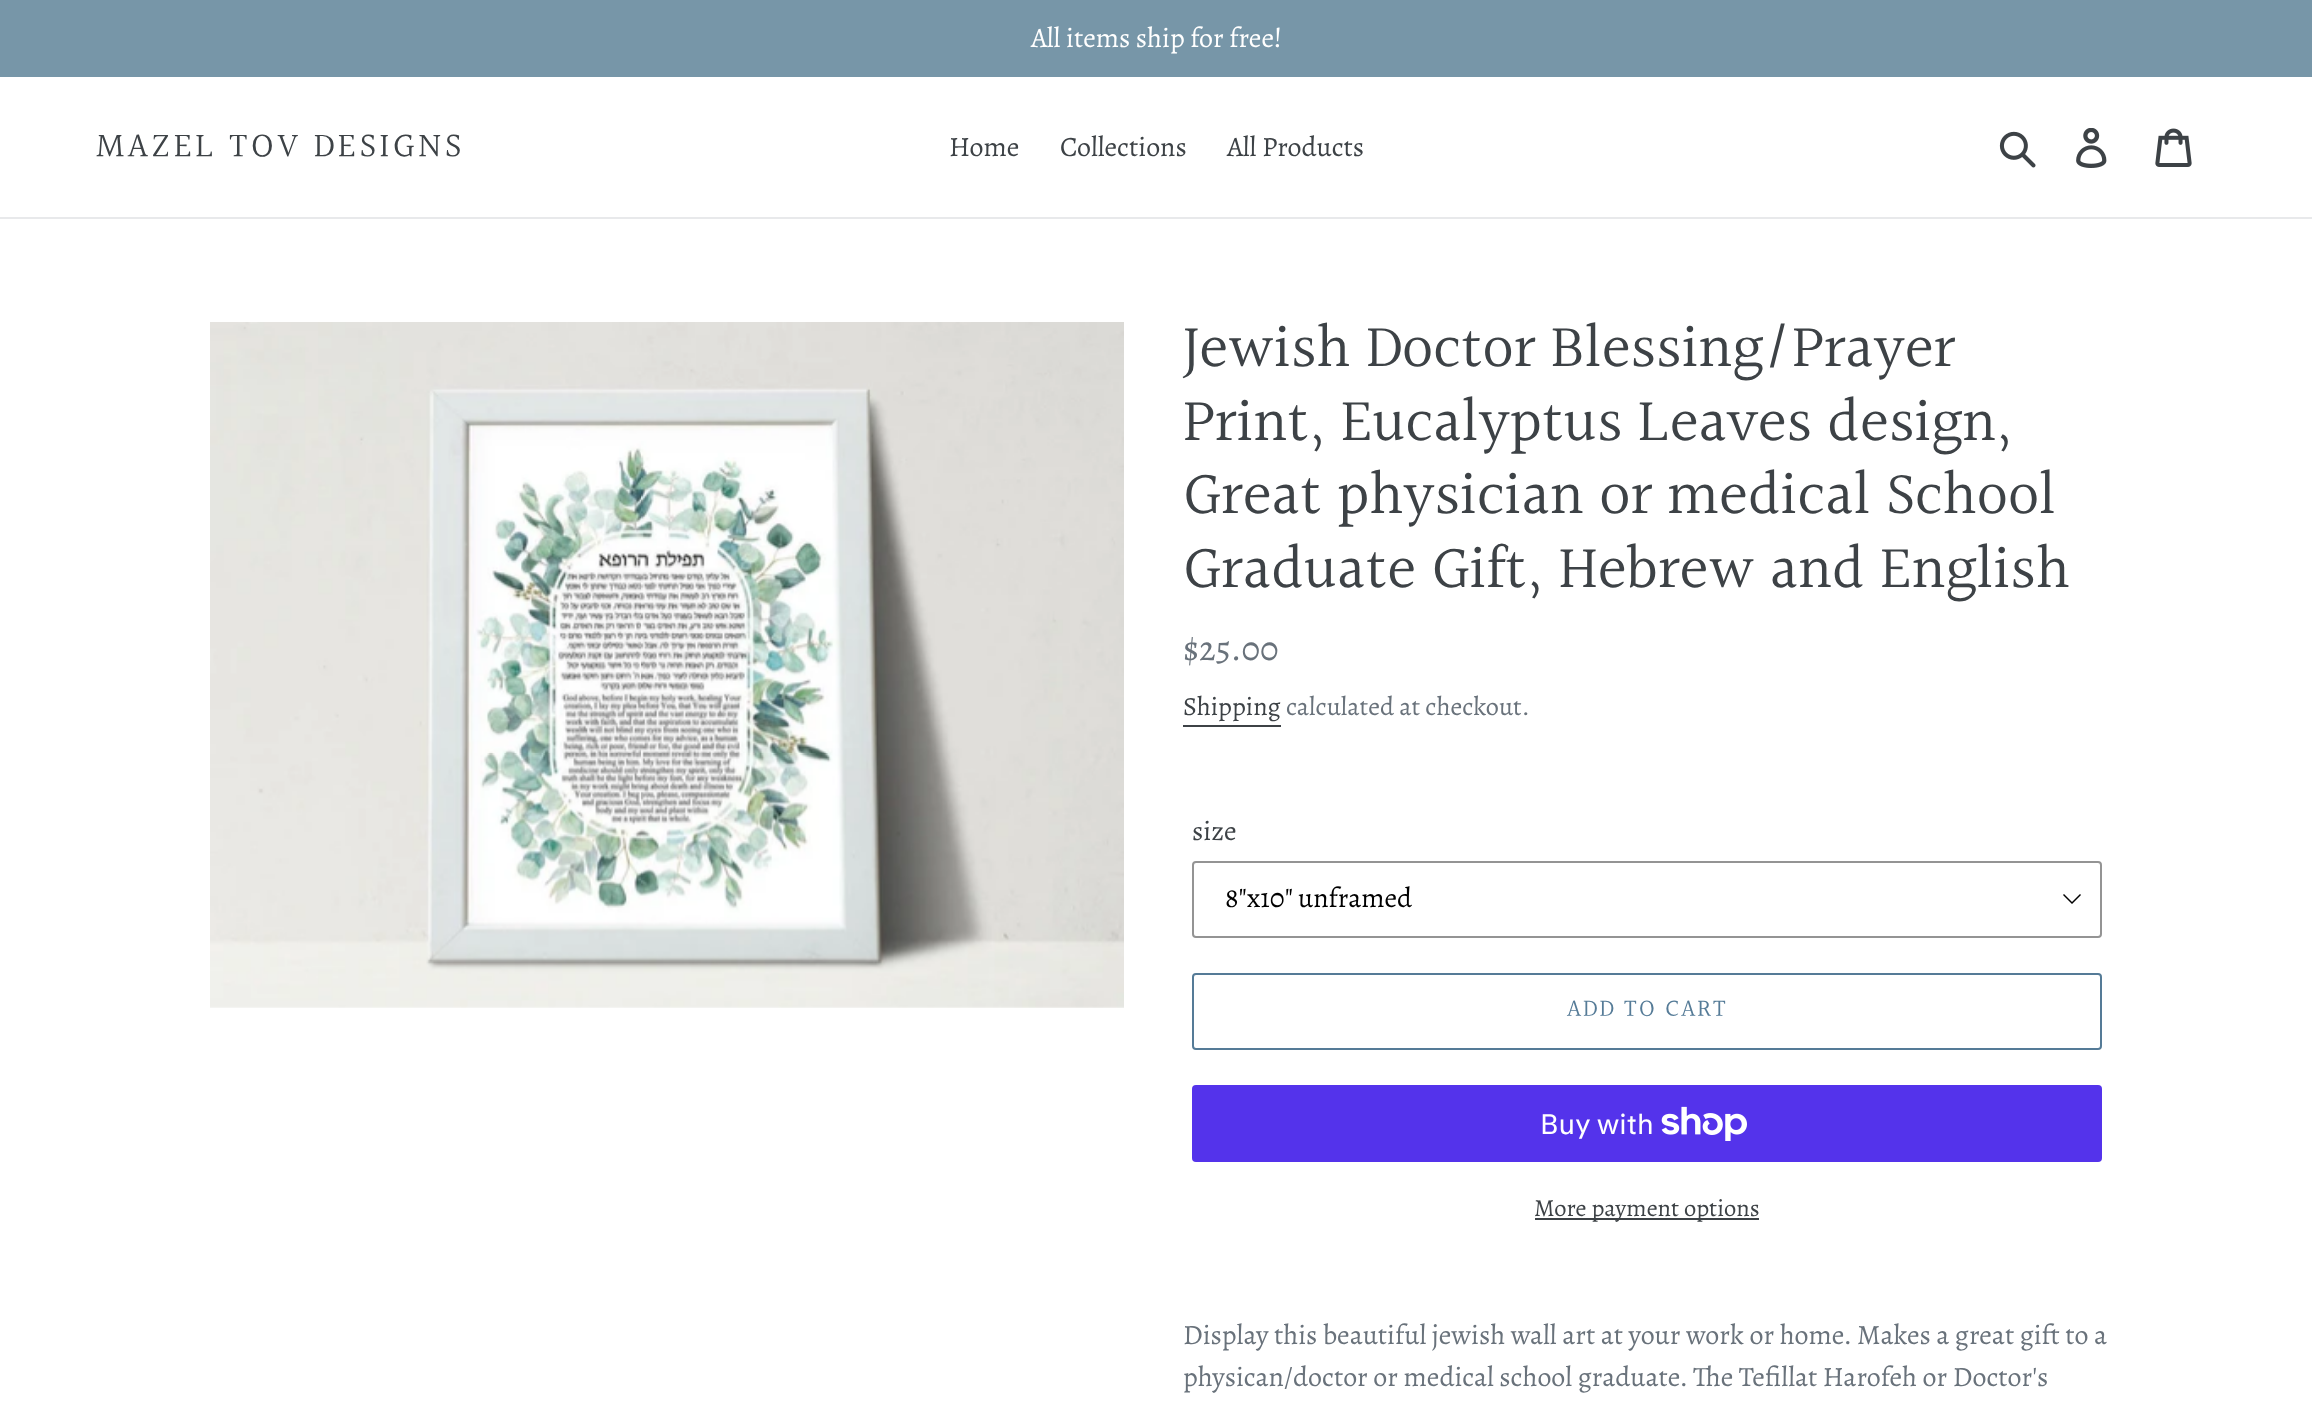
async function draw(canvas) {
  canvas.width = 2312;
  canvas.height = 1410;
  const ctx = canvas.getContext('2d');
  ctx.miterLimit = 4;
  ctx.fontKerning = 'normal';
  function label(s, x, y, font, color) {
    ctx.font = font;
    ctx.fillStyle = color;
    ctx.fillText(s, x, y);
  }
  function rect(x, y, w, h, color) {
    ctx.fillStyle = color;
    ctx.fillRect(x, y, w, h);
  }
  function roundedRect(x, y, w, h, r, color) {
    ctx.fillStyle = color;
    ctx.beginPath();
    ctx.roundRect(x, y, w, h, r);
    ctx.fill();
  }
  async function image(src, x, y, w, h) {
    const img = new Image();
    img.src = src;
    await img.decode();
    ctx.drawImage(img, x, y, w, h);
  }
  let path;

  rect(0, 0, 2312, 1410, '#fff');
  rect(0, 0, 2312, 77, '#7796a8');
  label('All items ship for free!', 1031, 47, '28px Alegreya', '#fff');
  rect(0, 217, 2312, 2, '#e8e9eb');
  ctx.letterSpacing = '3.5px';
  label('MAZEL TOV DESIGNS', 96, 158, '35px Halant', '#3d4246');
  ctx.letterSpacing = '0px';
  label('Home', 949, 156, '28px Alegreya', '#3d4246');
  label('Collections', 1060, 156, '28px Alegreya', '#3d4246');
  label('All Products', 1227, 156, '28px Alegreya', '#3d4246');
  await image('assets/img1.png', 1999, 131, 37, 37);
  await image('assets/img2.png', 2076, 128, 31, 40);
  await image('assets/img3.png', 2155, 128, 37, 39);
  await image('assets/img4.png', 210, 322, 914, 686);
  label('Jewish Doctor Blessing/Prayer', 1183, 369, '61.25px Halant', '#3d4246');
  label('Print, Eucalyptus Leaves design,', 1183, 443, '61.25px Halant', '#3d4246');
  label('Great physician or medical School', 1183, 516, '61.25px Halant', '#3d4246');
  label('Graduate Gift, Hebrew and English', 1183, 590, '61.25px Halant', '#3d4246');
  label('$25.00', 1183, 660, '35px Alegreya', '#69727b');
  label('Shipping', 1183, 715, '26.25px Alegreya', '#3d4246');
  rect(1183, 725, 98, 2, '#3d4246');
  label('calculated at checkout.', 1286, 715, '26.25px Alegreya', '#69727b');
  label('size', 1192, 840, '28px Alegreya', '#3d4246');
  ctx.fillStyle = '#000';
  path = new Path2D('M2072 904L2063 895L2064 894L2072 902L2080 894L2081 895Z');
  ctx.fill(path);
  ctx.beginPath();
  ctx.roundRect(1193, 862, 908, 75, 3);
  ctx.strokeStyle = '#949494';
  ctx.lineWidth = 2;
  ctx.stroke();
  label('8"x10" unframed', 1225, 907, '28px Alegreya', '#000');
  ctx.beginPath();
  ctx.roundRect(1193, 974, 908, 75, 3);
  ctx.strokeStyle = '#557b97';
  ctx.stroke();
  ctx.letterSpacing = '2px';
  label('ADD TO CART', 1567, 1017, '24.5px Halant', '#557b97');
  roundedRect(1192, 1085, 910, 77, 4, '#5433eb');
  ctx.letterSpacing = '0px';
  label('Buy with', 1540, 1134, '28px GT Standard', '#fff');
  await image('assets/img5.png', 1661, 1106, 86, 35);
  rect(1535, 1218, 224, 2, '#3d4246');
  label('More payment options', 1534, 1216, '24.5px Alegreya', '#3d4246');
  label('Display this beautiful jewish wall art at your work or home. Makes a great gift to a', 1183, 1344, '28px Alegreya', '#69727b');
  label('physican/doctor or medical school graduate. The Tefillat Harofeh or Doctor\'s', 1183, 1386, '28px Alegreya', '#69727b');
}

draw(document.querySelector('canvas'));
